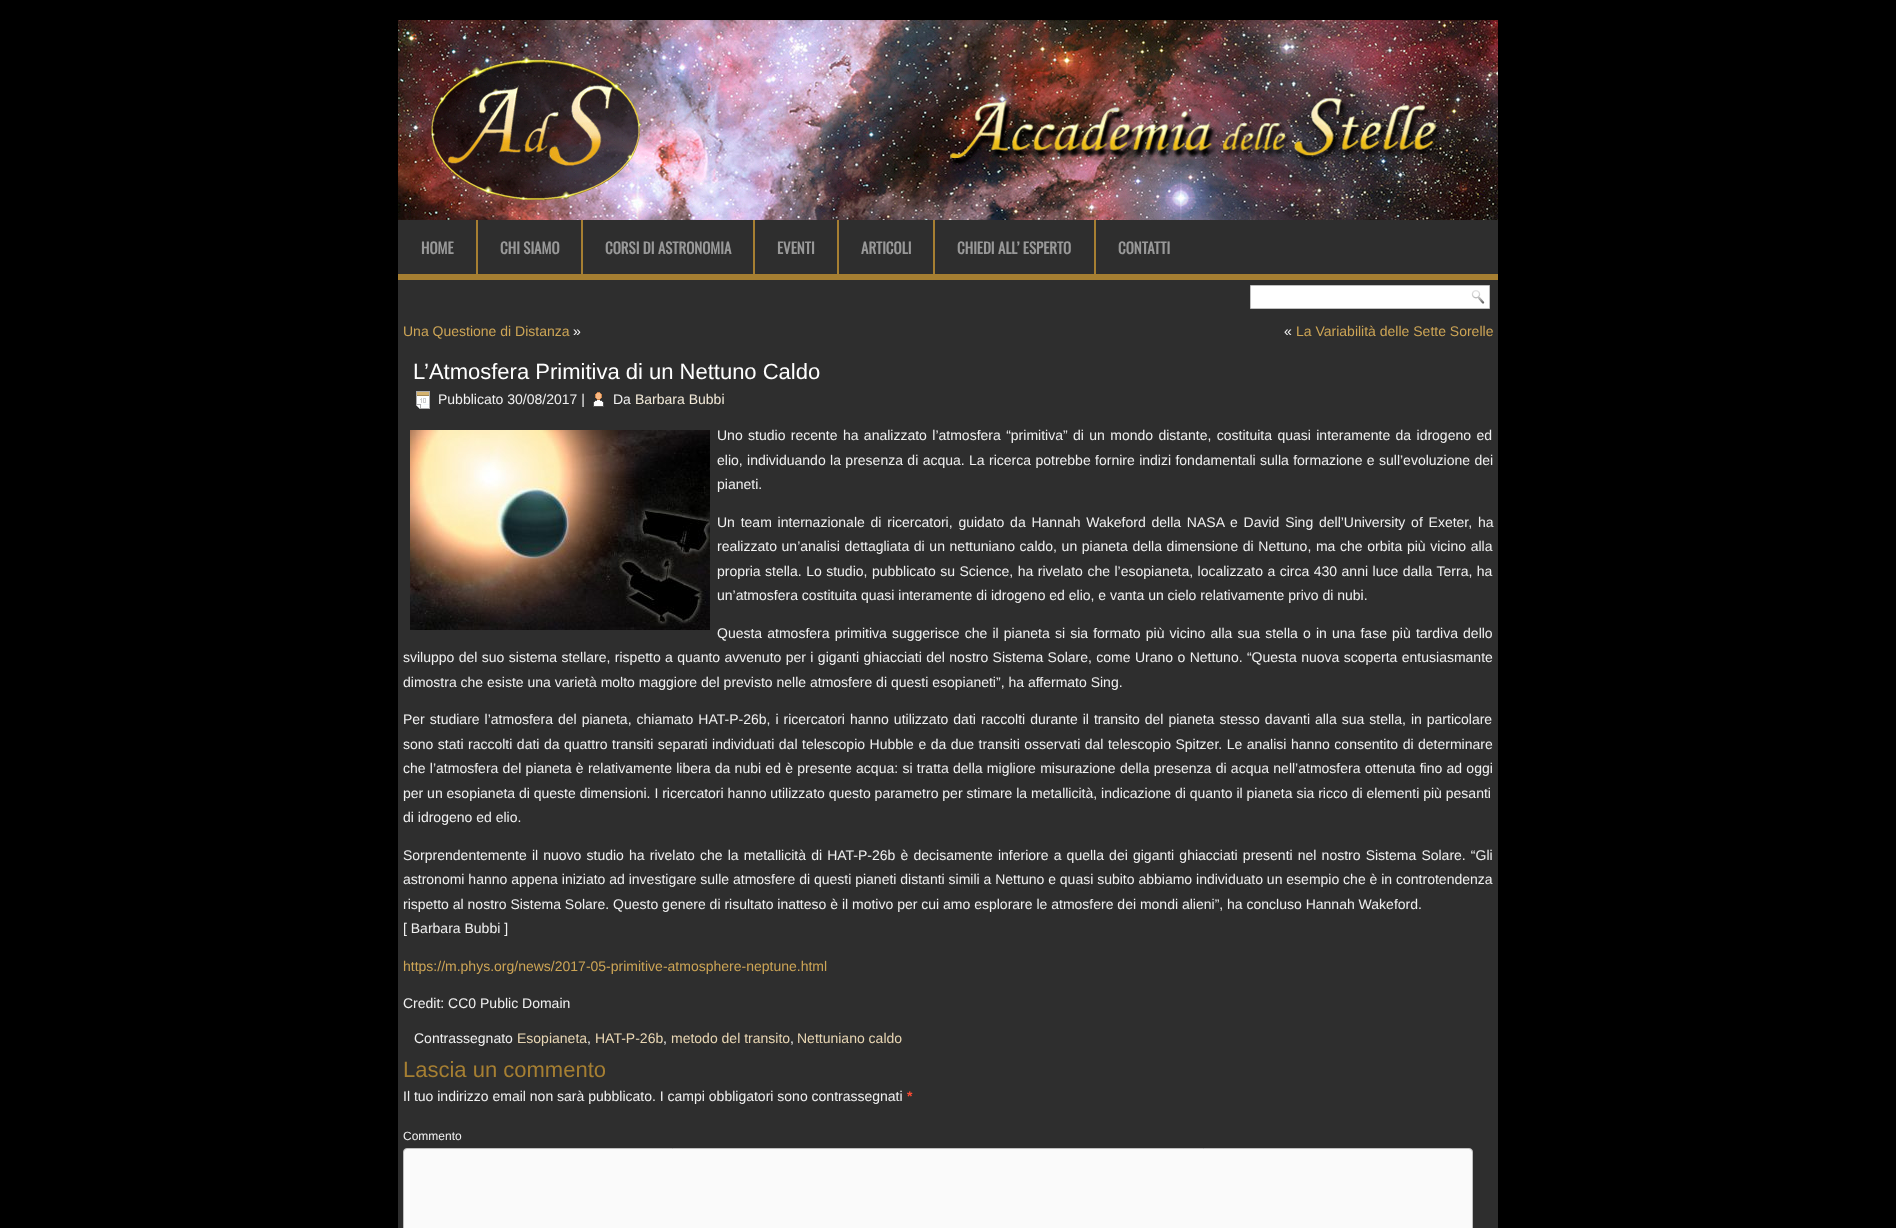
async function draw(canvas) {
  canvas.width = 1896;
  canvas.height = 1228;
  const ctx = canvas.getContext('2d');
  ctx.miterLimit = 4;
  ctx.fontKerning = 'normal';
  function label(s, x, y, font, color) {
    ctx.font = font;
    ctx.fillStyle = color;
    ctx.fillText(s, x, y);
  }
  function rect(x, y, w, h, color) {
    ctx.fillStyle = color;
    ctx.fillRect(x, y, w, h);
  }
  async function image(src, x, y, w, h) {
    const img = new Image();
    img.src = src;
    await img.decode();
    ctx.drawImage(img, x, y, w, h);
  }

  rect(0, 0, 1896, 1228, '#000');
  rect(398, 220, 1100, 1008, '#2e2e2e');
  await image('assets/img1.png', 398, 20, 1100, 200);
  rect(398, 274, 1100, 6, '#a67f32');
  label('HOME', 421, 254, 'bold 15px Oswald', '#999');
  rect(476, 220, 2, 54, '#a67f32');
  label('CHI SIAMO', 500, 254, 'bold 15px Oswald', '#999');
  rect(581, 220, 2, 54, '#a67f32');
  label('CORSI DI ASTRONOMIA', 605, 254, 'bold 15px Oswald', '#999');
  rect(753, 220, 2, 54, '#a67f32');
  label('EVENTI', 777, 254, 'bold 15px Oswald', '#999');
  rect(837, 220, 2, 54, '#a67f32');
  label('ARTICOLI', 861, 254, 'bold 15px Oswald', '#999');
  rect(933, 220, 2, 54, '#a67f32');
  label('CHIEDI ALL’ ESPERTO', 957, 254, 'bold 15px Oswald', '#999');
  rect(1094, 220, 2, 54, '#a67f32');
  label('CONTATTI', 1118, 254, 'bold 15px Oswald', '#999');
  ctx.fillStyle = '#fff';
  ctx.beginPath();
  ctx.rect(1250.5, 285.5, 239, 23);
  ctx.fill();
  ctx.strokeStyle = '#bfbfbf';
  ctx.stroke();
  await image('assets/img2.png', 1471, 290, 14, 14);
  label('Una Questione di Distanza', 403, 336, '14px Liberation Sans', '#cda556');
  label('»', 573, 336, '14px Liberation Sans', '#f0f0f0');
  label('«', 1284, 336, '14px Liberation Sans', '#f0f0f0');
  label('La Variabilità delle Sette Sorelle', 1296, 336, '14px Liberation Sans', '#cda556');
  label('L’Atmosfera Primitiva di un Nettuno Caldo', 413, 379, '22px Liberation Sans', '#fff');
  await image('assets/img3.png', 416, 391, 14, 18);
  label('Pubblicato 30/08/2017 |', 438, 404, '14px Liberation Sans', '#f0f0f0');
  await image('assets/img4.png', 593, 392, 11, 15);
  label('Da', 613, 404, '14px Liberation Sans', '#f0f0f0');
  label('Barbara Bubbi', 635, 404, '14px Liberation Sans', '#f3ead8');
  await image('assets/img5.png', 410, 430, 300, 200);
  ctx.wordSpacing = '1.5px';
  label('Uno studio recente ha analizzato l’atmosfera “primitiva” di un mondo distante, costituita quasi interamente da idrogeno ed', 717, 440, '14px Liberation Sans', '#f0f0f0');
  ctx.wordSpacing = '0.5px';
  label('elio, individuando la presenza di acqua. La ricerca potrebbe fornire indizi fondamentali sulla formazione e sull’evoluzione dei', 717, 465, '14px Liberation Sans', '#f0f0f0');
  ctx.wordSpacing = '0px';
  label('pianeti.', 717, 489, '14px Liberation Sans', '#f0f0f0');
  ctx.wordSpacing = '1.9px';
  label('Un team internazionale di ricercatori, guidato da Hannah Wakeford della NASA e David Sing dell’University of Exeter, ha', 717, 527, '14px Liberation Sans', '#f0f0f0');
  ctx.wordSpacing = '0.75px';
  label('realizzato un’analisi dettagliata di un nettuniano caldo, un pianeta della dimensione di Nettuno, ma che orbita più vicino alla', 717, 551, '14px Liberation Sans', '#f0f0f0');
  ctx.wordSpacing = '0.6px';
  label('propria stella. Lo studio, pubblicato su Science, ha rivelato che l’esopianeta, localizzato a circa 430 anni luce dalla Terra, ha', 717, 576, '14px Liberation Sans', '#f0f0f0');
  ctx.wordSpacing = '0px';
  label('un’atmosfera costituita quasi interamente di idrogeno ed elio, e vanta un cielo relativamente privo di nubi.', 717, 600, '14px Liberation Sans', '#f0f0f0');
  ctx.wordSpacing = '1.25px';
  label('Questa atmosfera primitiva suggerisce che il pianeta si sia formato più vicino alla sua stella o in una fase più tardiva dello', 717, 638, '14px Liberation Sans', '#f0f0f0');
  ctx.wordSpacing = '0.5px';
  label('sviluppo del suo sistema stellare, rispetto a quanto avvenuto per i giganti ghiacciati del nostro Sistema Solare, come Urano o Nettuno. “Questa nuova scoperta entusiasmante', 403, 662, '14px Liberation Sans', '#f0f0f0');
  ctx.wordSpacing = '0px';
  label('dimostra che esiste una varietà molto maggiore del previsto nelle atmosfere di questi esopianeti”, ha affermato Sing.', 403, 687, '14px Liberation Sans', '#f0f0f0');
  ctx.wordSpacing = '1.1px';
  label('Per studiare l’atmosfera del pianeta, chiamato HAT-P-26b, i ricercatori hanno utilizzato dati raccolti durante il transito del pianeta stesso davanti alla sua stella, in particolare', 403, 724, '14px Liberation Sans', '#f0f0f0');
  ctx.wordSpacing = '0.6px';
  label('sono stati raccolti dati da quattro transiti separati individuati dal telescopio Hubble e da due transiti osservati dal telescopio Spitzer. Le analisi hanno consentito di determinare', 403, 749, '14px Liberation Sans', '#f0f0f0');
  ctx.wordSpacing = '0.4px';
  label('che l’atmosfera del pianeta è relativamente libera da nubi ed è presente acqua: si tratta della migliore misurazione della presenza di acqua nell’atmosfera ottenuta fino ad oggi', 403, 773, '14px Liberation Sans', '#f0f0f0');
  ctx.wordSpacing = '0px';
  label('per un esopianeta di queste dimensioni. I ricercatori hanno utilizzato questo parametro per stimare la metallicità, indicazione di quanto il pianeta sia ricco di elementi più pesanti', 403, 798, '14px Liberation Sans', '#f0f0f0');
  label('di idrogeno ed elio.', 403, 822, '14px Liberation Sans', '#f0f0f0');
  ctx.wordSpacing = '1.25px';
  label('Sorprendentemente il nuovo studio ha rivelato che la metallicità di HAT-P-26b è decisamente inferiore a quella dei giganti ghiacciati presenti nel nostro Sistema Solare. “Gli', 403, 860, '14px Liberation Sans', '#f0f0f0');
  ctx.wordSpacing = '0px';
  label('astronomi hanno appena iniziato ad investigare sulle atmosfere di questi pianeti distanti simili a Nettuno e quasi subito abbiamo individuato un esempio che è in controtendenza', 403, 884, '14px Liberation Sans', '#f0f0f0');
  label('rispetto al nostro Sistema Solare. Questo genere di risultato inatteso è il motivo per cui amo esplorare le atmosfere dei mondi alieni”, ha concluso Hannah Wakeford.', 403, 909, '14px Liberation Sans', '#f0f0f0');
  label('[ Barbara Bubbi ]', 403, 933, '14px Liberation Sans', '#f0f0f0');
  label('https://m.phys.org/news/2017-05-primitive-atmosphere-neptune.html', 403, 971, '14px Liberation Sans', '#cda556');
  label('Credit: CC0 Public Domain', 403, 1008, '14px Liberation Sans', '#f0f0f0');
  label('Contrassegnato', 414, 1043, '14px Liberation Sans', '#f0f0f0');
  label('Esopianeta', 517, 1043, '14px Liberation Sans', '#e9d7b4');
  label(',', 587, 1043, '14px Liberation Sans', '#f0f0f0');
  label('HAT-P-26b', 595, 1043, '14px Liberation Sans', '#e9d7b4');
  label(',', 663, 1043, '14px Liberation Sans', '#f0f0f0');
  label('metodo del transito', 671, 1043, '14px Liberation Sans', '#e9d7b4');
  label(',', 790, 1043, '14px Liberation Sans', '#f0f0f0');
  label('Nettuniano caldo', 797, 1043, '14px Liberation Sans', '#e9d7b4');
  label('Lascia un commento', 403, 1077, '22px Liberation Sans', '#a67f32');
  label('Il tuo indirizzo email non sarà pubblicato. I campi obbligatori sono contrassegnati', 403, 1101, '14px Liberation Sans', '#f0f0f0');
  label('*', 907, 1101, 'bold 14px Liberation Sans', '#ff4b33');
  label('Commento', 403, 1140, '12px Liberation Sans', '#f0f0f0');
  ctx.fillStyle = '#fafafa';
  ctx.beginPath();
  ctx.roundRect(403.5, 1148.5, 1069, 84, 3.5);
  ctx.fill();
  ctx.stroke();
}

draw(document.querySelector('canvas'));
